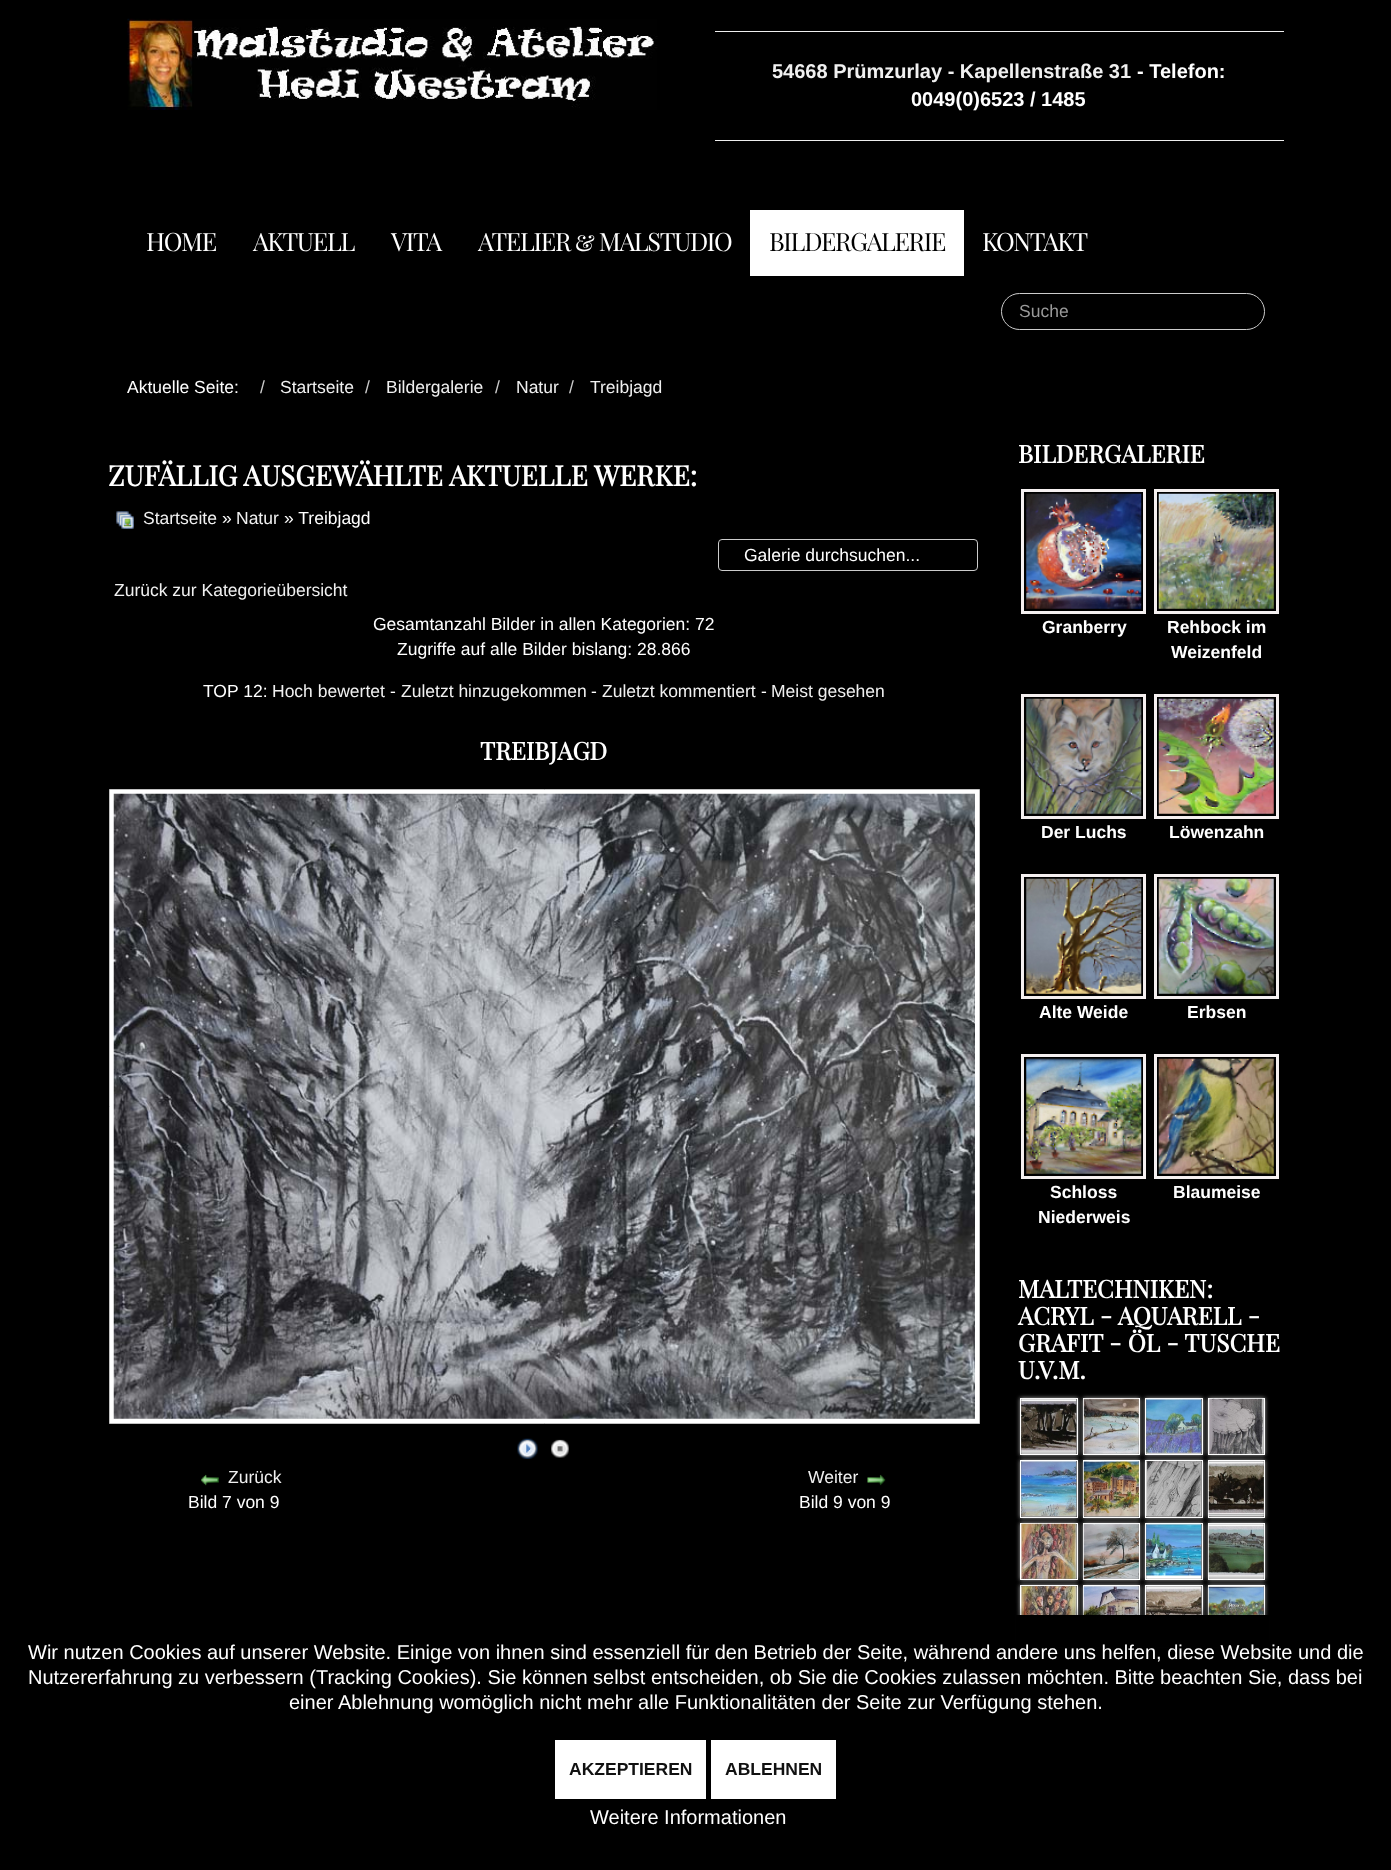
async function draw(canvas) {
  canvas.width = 1391;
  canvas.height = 1870;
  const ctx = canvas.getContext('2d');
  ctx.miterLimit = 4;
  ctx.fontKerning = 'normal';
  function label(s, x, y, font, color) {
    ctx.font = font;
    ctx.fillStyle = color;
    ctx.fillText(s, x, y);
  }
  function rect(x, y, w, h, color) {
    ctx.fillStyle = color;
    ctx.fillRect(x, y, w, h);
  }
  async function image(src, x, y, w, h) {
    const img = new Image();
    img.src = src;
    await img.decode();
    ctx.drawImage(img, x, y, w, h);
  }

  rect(0, 0, 1391, 1870, '#000');
  await image('assets/img1.png', 127, 18, 531, 92);
  rect(715, 31, 569, 1, '#eee');
  label('54668 Prümzurlay - Kapellenstraße 31', 772, 78, 'bold 20px Liberation Sans', '#f0f0f0');
  label('- Telefon:', 1137, 78, 'bold 20px Liberation Sans', '#fff');
  label('0049(0)6523 / 1485', 911, 106, 'bold 20px Liberation Sans', '#fff');
  rect(715, 140, 569, 1, '#eee');
  ctx.letterSpacing = '-1.25px';
  label('HOME', 146, 251, '25.25px Playfair Display SC', '#fff');
  label('AKTUELL', 253, 251, '25.25px Playfair Display SC', '#fff');
  label('VITA', 391, 251, '25.25px Playfair Display SC', '#fff');
  label('ATELIER & MALSTUDIO', 478, 251, '25.25px Playfair Display SC', '#fff');
  rect(750, 210, 214, 66, '#fff');
  label('BILDERGALERIE', 769, 251, '25.25px Playfair Display SC', '#000');
  label('KONTAKT', 982, 251, '25.25px Playfair Display SC', '#fff');
  ctx.beginPath();
  ctx.roundRect(1001.5, 293.5, 263, 36, 18);
  ctx.strokeStyle = '#ccc';
  ctx.stroke();
  ctx.letterSpacing = '0px';
  label('Suche', 1019, 317, '17.5px Liberation Sans', '#999');
  label('Aktuelle Seite:', 127, 393, '17.5px Liberation Sans', '#fff');
  label('/', 260, 393, '17.5px Liberation Sans', '#ccc');
  label('Startseite', 280, 393, '17.5px Liberation Sans', '#f0f0f0');
  label('/', 365, 393, '17.5px Liberation Sans', '#ccc');
  label('Bildergalerie', 386, 393, '17.5px Liberation Sans', '#f0f0f0');
  label('/', 495, 393, '17.5px Liberation Sans', '#ccc');
  label('Natur', 516, 393, '17.5px Liberation Sans', '#f0f0f0');
  label('/', 569, 393, '17.5px Liberation Sans', '#ccc');
  label('Treibjagd', 590, 393, '17.5px Liberation Sans', '#f0f0f0');
  label('ZUFÄLLIG AUSGEWÄHLTE AKTUELLE WERKE:', 108, 486, 'bold 28px Playfair Display SC', '#fff');
  await image('assets/img2.png', 116, 511, 18, 18);
  label('Startseite', 143, 524, '17.5px Liberation Sans', '#f0f0f0');
  label('»', 222, 524, '17.5px Liberation Sans', '#fff');
  label('Natur', 236, 524, '17.5px Liberation Sans', '#f0f0f0');
  label('» Treibjagd', 284, 524, '17.5px Liberation Sans', '#fff');
  ctx.beginPath();
  ctx.roundRect(718.5, 539.5, 259, 31, 3.5);
  ctx.stroke();
  label('Galerie durchsuchen...', 744, 561, '17.5px Liberation Sans', '#fff');
  label('Zurück zur Kategorieübersicht', 114, 596, '17.5px Liberation Sans', '#f0f0f0');
  label('Gesamtanzahl Bilder in allen Kategorien: 72', 373, 630, '17.5px Liberation Sans', '#fff');
  label('Zugriffe auf alle Bilder bislang: 28.866', 397, 655, '17.5px Liberation Sans', '#fff');
  label('TOP 12:', 203, 697, '17.5px Liberation Sans', '#fff');
  label('Hoch bewertet', 272, 697, '17.5px Liberation Sans', '#f0f0f0');
  label('-', 390, 697, '17.5px Liberation Sans', '#fff');
  label('Zuletzt hinzugekommen', 401, 697, '17.5px Liberation Sans', '#f0f0f0');
  label('-', 591, 697, '17.5px Liberation Sans', '#fff');
  label('Zuletzt kommentiert', 602, 697, '17.5px Liberation Sans', '#f0f0f0');
  label('-', 761, 697, '17.5px Liberation Sans', '#fff');
  label('Meist gesehen', 771, 697, '17.5px Liberation Sans', '#f0f0f0');
  label('TREIBJAGD', 480, 760, 'bold 24.5px Playfair Display SC', '#fff');
  ctx.beginPath();
  ctx.rect(109.5, 789.5, 870, 634);
  ctx.fill();
  ctx.strokeStyle = '#c0c0c0';
  ctx.stroke();
  await image('assets/img3.png', 113, 793, 862, 626);
  await image('assets/img4.png', 517, 1438, 21, 21);
  await image('assets/img5.png', 551, 1439, 18, 19);
  await image('assets/img6.png', 201, 1474, 18, 12);
  label('Zurück', 228, 1483, '17.5px Liberation Sans', '#f0f0f0');
  label('Bild 7 von 9', 188, 1508, '17.5px Liberation Sans', '#fff');
  label('Weiter', 808, 1483, '17.5px Liberation Sans', '#f0f0f0');
  await image('assets/img7.png', 867, 1474, 19, 12);
  label('Bild 9 von 9', 799, 1508, '17.5px Liberation Sans', '#fff');
  label('BILDERGALERIE', 1018, 463, 'bold 24.5px Playfair Display SC', '#fff');
  ctx.strokeStyle = '#f5f0f0';
  ctx.lineWidth = 3;
  ctx.strokeRect(1022.5, 490.5, 122, 122);
  await image('assets/img8.png', 1026, 493, 116, 116);
  label('Granberry', 1042, 633, 'bold 17.5px Liberation Sans', '#fff');
  ctx.strokeRect(1155.5, 490.5, 122, 122);
  await image('assets/img9.png', 1158, 493, 116, 116);
  label('Rehbock im', 1167, 633, 'bold 17.5px Liberation Sans', '#fff');
  label('Weizenfeld', 1171, 658, 'bold 17.5px Liberation Sans', '#fff');
  ctx.strokeRect(1022.5, 695.5, 122, 122);
  await image('assets/img10.png', 1026, 698, 116, 116);
  label('Der Luchs', 1041, 838, 'bold 17.5px Liberation Sans', '#fff');
  ctx.strokeRect(1155.5, 695.5, 122, 122);
  await image('assets/img11.png', 1158, 698, 116, 116);
  label('Löwenzahn', 1169, 838, 'bold 17.5px Liberation Sans', '#fff');
  ctx.strokeRect(1022.5, 875.5, 122, 122);
  await image('assets/img12.png', 1026, 878, 116, 116);
  label('Alte Weide', 1039, 1018, 'bold 17.5px Liberation Sans', '#fff');
  ctx.strokeRect(1155.5, 875.5, 122, 122);
  await image('assets/img13.png', 1158, 878, 116, 116);
  label('Erbsen', 1187, 1018, 'bold 17.5px Liberation Sans', '#fff');
  ctx.strokeRect(1022.5, 1055.5, 122, 122);
  await image('assets/img14.png', 1026, 1058, 116, 116);
  label('Schloss', 1050, 1198, 'bold 17.5px Liberation Sans', '#fff');
  label('Niederweis', 1038, 1223, 'bold 17.5px Liberation Sans', '#fff');
  ctx.strokeRect(1155.5, 1055.5, 122, 122);
  await image('assets/img15.png', 1158, 1058, 116, 116);
  label('Blaumeise', 1173, 1198, 'bold 17.5px Liberation Sans', '#fff');
  label('MALTECHNIKEN:', 1018, 1298, 'bold 24.5px Playfair Display SC', '#fff');
  label('ACRYL - AQUARELL -', 1018, 1325, 'bold 24.5px Playfair Display SC', '#fff');
  label('GRAFIT - ÖL - TUSCHE', 1018, 1352, 'bold 24.5px Playfair Display SC', '#fff');
  label('U.V.M.', 1018, 1379, 'bold 24.5px Playfair Display SC', '#fff');
  ctx.fillStyle = '#aaa';
  ctx.filter = 'blur(2px)';
  ctx.beginPath();
  ctx.rect(1020, 1398, 58, 57);
  ctx.fill();
  ctx.filter = 'none';
  ctx.strokeStyle = '#fff';
  ctx.lineWidth = 1;
  ctx.strokeRect(1020.5, 1398.5, 57, 56);
  await image('assets/img16.png', 1021, 1398, 56, 56);
  ctx.filter = 'blur(2px)';
  ctx.beginPath();
  ctx.rect(1083, 1398, 57, 57);
  ctx.fill();
  ctx.filter = 'none';
  ctx.strokeRect(1083.5, 1398.5, 56, 56);
  await image('assets/img17.png', 1083, 1398, 56, 56);
  ctx.filter = 'blur(2px)';
  ctx.beginPath();
  ctx.rect(1145, 1398, 58, 57);
  ctx.fill();
  ctx.filter = 'none';
  ctx.strokeRect(1145.5, 1398.5, 57, 56);
  await image('assets/img18.png', 1146, 1398, 56, 56);
  ctx.filter = 'blur(2px)';
  ctx.beginPath();
  ctx.rect(1208, 1398, 57, 57);
  ctx.fill();
  ctx.filter = 'none';
  ctx.strokeRect(1208.5, 1398.5, 56, 56);
  await image('assets/img19.png', 1208, 1398, 56, 56);
  ctx.filter = 'blur(2px)';
  ctx.beginPath();
  ctx.rect(1020, 1460, 58, 58);
  ctx.fill();
  ctx.filter = 'none';
  ctx.strokeRect(1020.5, 1460.5, 57, 57);
  await image('assets/img20.png', 1021, 1461, 56, 56);
  ctx.filter = 'blur(2px)';
  ctx.beginPath();
  ctx.rect(1083, 1460, 57, 58);
  ctx.fill();
  ctx.filter = 'none';
  ctx.strokeRect(1083.5, 1460.5, 56, 57);
  await image('assets/img21.png', 1083, 1461, 56, 56);
  ctx.filter = 'blur(2px)';
  ctx.beginPath();
  ctx.rect(1145, 1460, 58, 58);
  ctx.fill();
  ctx.filter = 'none';
  ctx.strokeRect(1145.5, 1460.5, 57, 57);
  await image('assets/img22.png', 1146, 1461, 56, 56);
  ctx.filter = 'blur(2px)';
  ctx.beginPath();
  ctx.rect(1208, 1460, 57, 58);
  ctx.fill();
  ctx.filter = 'none';
  ctx.strokeRect(1208.5, 1460.5, 56, 57);
  await image('assets/img23.png', 1208, 1461, 56, 56);
  ctx.filter = 'blur(2px)';
  ctx.beginPath();
  ctx.rect(1020, 1523, 58, 57);
  ctx.fill();
  ctx.filter = 'none';
  ctx.strokeRect(1020.5, 1523.5, 57, 56);
  await image('assets/img24.png', 1021, 1523, 56, 56);
  ctx.filter = 'blur(2px)';
  ctx.beginPath();
  ctx.rect(1083, 1523, 57, 57);
  ctx.fill();
  ctx.filter = 'none';
  ctx.strokeRect(1083.5, 1523.5, 56, 56);
  await image('assets/img25.png', 1083, 1523, 56, 56);
  ctx.filter = 'blur(2px)';
  ctx.beginPath();
  ctx.rect(1145, 1523, 58, 57);
  ctx.fill();
  ctx.filter = 'none';
  ctx.strokeRect(1145.5, 1523.5, 57, 56);
  await image('assets/img26.png', 1146, 1523, 56, 56);
  ctx.filter = 'blur(2px)';
  ctx.beginPath();
  ctx.rect(1208, 1523, 57, 57);
  ctx.fill();
  ctx.filter = 'none';
  ctx.strokeRect(1208.5, 1523.5, 56, 56);
  await image('assets/img27.png', 1208, 1523, 56, 56);
  ctx.filter = 'blur(2px)';
  ctx.beginPath();
  ctx.rect(1020, 1585, 58, 58);
  ctx.fill();
  ctx.filter = 'none';
  ctx.strokeRect(1020.5, 1585.5, 57, 57);
  await image('assets/img28.png', 1021, 1586, 56, 29);
  ctx.filter = 'blur(2px)';
  ctx.beginPath();
  ctx.rect(1083, 1585, 57, 58);
  ctx.fill();
  ctx.filter = 'none';
  ctx.strokeRect(1083.5, 1585.5, 56, 57);
  await image('assets/img29.png', 1083, 1586, 56, 29);
  ctx.filter = 'blur(2px)';
  ctx.beginPath();
  ctx.rect(1145, 1585, 58, 58);
  ctx.fill();
  ctx.filter = 'none';
  ctx.strokeRect(1145.5, 1585.5, 57, 57);
  await image('assets/img30.png', 1146, 1586, 56, 29);
  ctx.filter = 'blur(2px)';
  ctx.beginPath();
  ctx.rect(1208, 1585, 57, 58);
  ctx.fill();
  ctx.filter = 'none';
  ctx.strokeRect(1208.5, 1585.5, 56, 57);
  await image('assets/img31.png', 1208, 1586, 56, 29);
  ctx.fillStyle = '#00000036';
  ctx.filter = 'blur(3px)';
  ctx.beginPath();
  ctx.rect(-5, 1610, 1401, 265);
  ctx.fill();
  ctx.filter = 'none';
  rect(1016, 1615, 253, 32, '#000');
  label('Wir nutzen Cookies auf unserer Website. Einige von ihnen sind essenziell für den Betrieb der Seite, während andere uns helfen, diese Website und die', 28, 1659, '20px Liberation Sans', '#fff');
  label('Nutzererfahrung zu verbessern (Tracking Cookies). Sie können selbst entscheiden, ob Sie die Cookies zulassen möchten. Bitte beachten Sie, dass bei', 28, 1684, '20px Liberation Sans', '#fff');
  label('einer Ablehnung womöglich nicht mehr alle Funktionalitäten der Seite zur Verfügung stehen.', 289, 1709, '20px Liberation Sans', '#fff');
  rect(555, 1740, 151, 59, '#fff');
  label('AKZEPTIEREN', 569, 1775, 'bold 17.5px Liberation Sans', '#111');
  rect(711, 1740, 125, 59, '#fff');
  label('ABLEHNEN', 725, 1775, 'bold 17.5px Liberation Sans', '#111');
  label('Weitere Informationen', 590, 1824, '20px Liberation Sans', '#fff');
}

draw(document.querySelector('canvas'));
